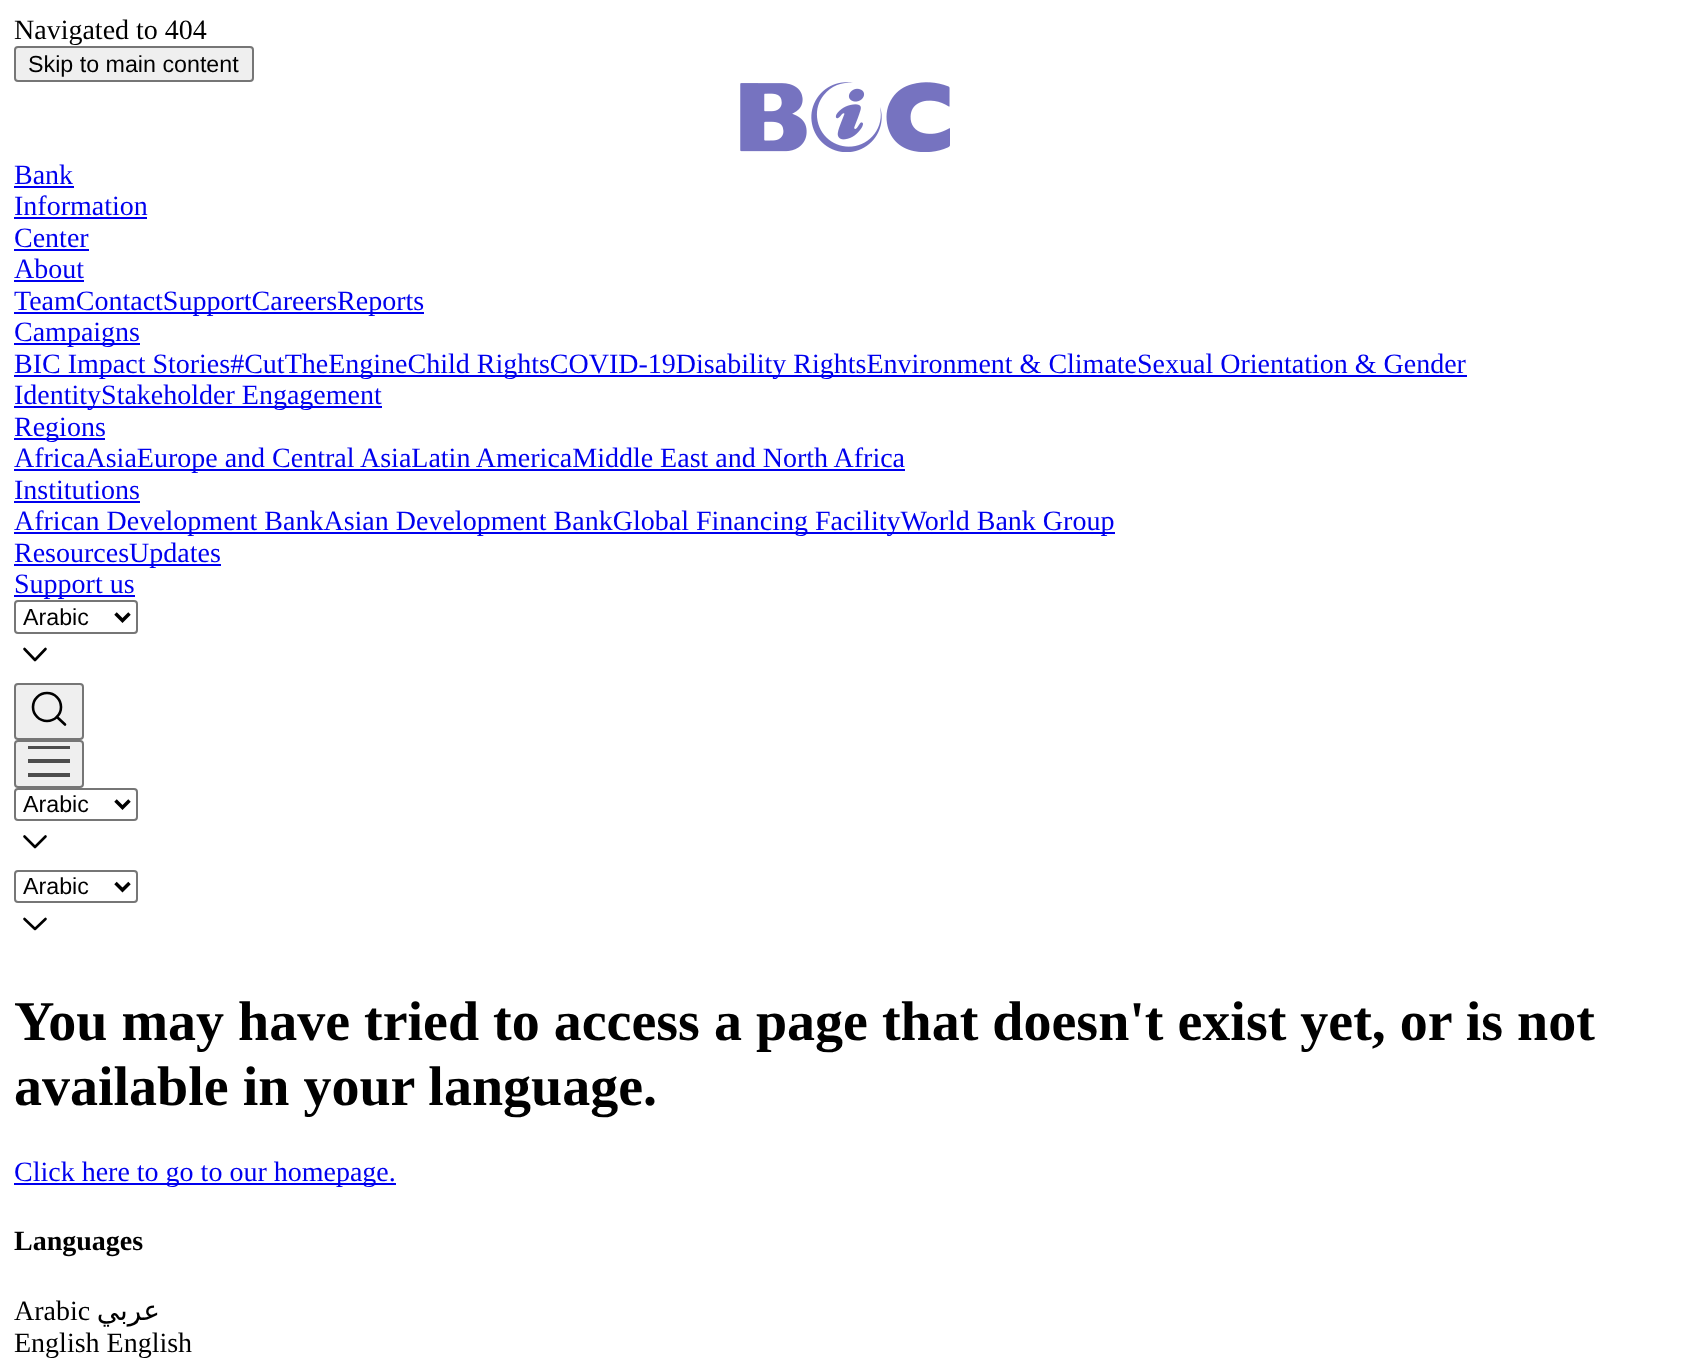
async function draw(canvas) {
  canvas.width = 1689;
  canvas.height = 1361;
  const ctx = canvas.getContext('2d');
  ctx.miterLimit = 4;
  ctx.fontKerning = 'normal';
  function label(s, x, y, font, color) {
    ctx.font = font;
    ctx.fillStyle = color;
    ctx.fillText(s, x, y);
  }
  function rect(x, y, w, h, color) {
    ctx.fillStyle = color;
    ctx.fillRect(x, y, w, h);
  }
  async function image(src, x, y, w, h) {
    const img = new Image();
    img.src = src;
    await img.decode();
    ctx.drawImage(img, x, y, w, h);
  }
  let path;

  rect(0, 0, 1689, 1361, '#fff');
  label('Navigated to 404', 14, 39, '28px Liberation Serif', '#000');
  ctx.fillStyle = '#efefef';
  ctx.beginPath();
  ctx.roundRect(15, 47, 238, 34, 3);
  ctx.fill();
  ctx.strokeStyle = '#767676';
  ctx.lineWidth = 2;
  ctx.stroke();
  label('Skip to main content', 28, 72, '23.25px Liberation Sans', '#000');
  await image('assets/img1.png', 740, 82, 210, 70);
  label('Bank', 14, 184, '28px Liberation Serif', '#00e');
  rect(14, 186, 60, 2, '#00e');
  label('Information', 14, 215, '28px Liberation Serif', '#00e');
  rect(14, 217, 133, 2, '#00e');
  label('Center', 14, 247, '28px Liberation Serif', '#00e');
  rect(14, 249, 75, 2, '#00e');
  label('About', 14, 278, '28px Liberation Serif', '#00e');
  rect(14, 280, 70, 2, '#00e');
  rect(14, 312, 410, 2, '#00e');
  label('TeamContactSupportCareersReports', 14, 310, '28px Liberation Serif', '#00e');
  rect(14, 343, 126, 2, '#00e');
  label('Campaigns', 14, 341, '28px Liberation Serif', '#00e');
  rect(14, 375, 1453, 2, '#00e');
  label('BIC Impact Stories#CutTheEngineChild RightsCOVID-19Disability RightsEnvironment & ClimateSexual Orientation & Gender', 14, 373, '28px Liberation Serif', '#00e');
  rect(14, 406, 368, 2, '#00e');
  label('IdentityStakeholder Engagement', 14, 404, '28px Liberation Serif', '#00e');
  rect(14, 438, 91, 2, '#00e');
  label('Regions', 14, 436, '28px Liberation Serif', '#00e');
  rect(14, 469, 891, 2, '#00e');
  label('AfricaAsiaEurope and Central AsiaLatin AmericaMiddle East and North Africa', 14, 467, '28px Liberation Serif', '#00e');
  label('Institutions', 14, 499, '28px Liberation Serif', '#00e');
  rect(14, 501, 126, 2, '#00e');
  rect(14, 532, 1101, 2, '#00e');
  label('African Development BankAsian Development BankGlobal Financing FacilityWorld Bank Group', 14, 530, '28px Liberation Serif', '#00e');
  rect(14, 564, 207, 2, '#00e');
  label('ResourcesUpdates', 14, 562, '28px Liberation Serif', '#00e');
  rect(14, 595, 121, 2, '#00e');
  label('Support us', 14, 593, '28px Liberation Serif', '#00e');
  ctx.beginPath();
  ctx.roundRect(15, 601, 122, 32, 3);
  ctx.stroke();
  path = new Path2D('M115.5 613.5L122.5 620.5L129.5 613.5');
  ctx.strokeStyle = '#000';
  ctx.lineWidth = 3.5;
  ctx.stroke(path);
  label('Arabic', 23, 625, '23.25px Liberation Sans', '#000');
  path = new Path2D('M24.5 649L35 660L45.5 649');
  ctx.lineWidth = 2.6;
  ctx.lineCap = 'round';
  ctx.lineJoin = 'round';
  ctx.stroke(path);
  ctx.fillStyle = '#efefef';
  ctx.beginPath();
  ctx.roundRect(15, 684, 68, 55, 3);
  ctx.fill();
  ctx.strokeStyle = '#767676';
  ctx.lineWidth = 2;
  ctx.lineJoin = 'miter';
  ctx.stroke();
  ctx.beginPath();
  ctx.arc(47, 707, 14, 0, 2 * Math.PI);
  ctx.strokeStyle = '#000';
  ctx.lineWidth = 2.6;
  ctx.stroke();
  path = new Path2D('M65 724.5L57 717');
  ctx.lineJoin = 'round';
  ctx.stroke(path);
  ctx.beginPath();
  ctx.roundRect(15, 741, 68, 46, 3);
  ctx.fill();
  ctx.strokeStyle = '#767676';
  ctx.lineWidth = 2;
  ctx.lineJoin = 'miter';
  ctx.stroke();
  rect(28, 746, 42, 3, '#4d4d4d');
  rect(28, 759, 42, 4, '#4d4d4d');
  rect(28, 773, 42, 4, '#4d4d4d');
  ctx.beginPath();
  ctx.roundRect(15, 789, 122, 31, 3);
  ctx.stroke();
  path = new Path2D('M115.5 800.5L122.5 807.5L129.5 800.5');
  ctx.strokeStyle = '#000';
  ctx.lineWidth = 3.5;
  ctx.lineCap = 'butt';
  ctx.stroke(path);
  label('Arabic', 23, 812, '23.25px Liberation Sans', '#000');
  path = new Path2D('M24.5 836.5L35 847L45.5 836.5');
  ctx.lineWidth = 2.6;
  ctx.lineCap = 'round';
  ctx.lineJoin = 'round';
  ctx.stroke(path);
  ctx.beginPath();
  ctx.roundRect(15, 871, 122, 31, 3);
  ctx.strokeStyle = '#767676';
  ctx.lineWidth = 2;
  ctx.lineJoin = 'miter';
  ctx.stroke();
  path = new Path2D('M115.5 883L122.5 890L129.5 883');
  ctx.strokeStyle = '#000';
  ctx.lineWidth = 3.5;
  ctx.lineCap = 'butt';
  ctx.stroke(path);
  label('Arabic', 23, 894, '23.25px Liberation Sans', '#000');
  path = new Path2D('M24.5 919L35 929L45.5 919');
  ctx.lineWidth = 2.6;
  ctx.lineCap = 'round';
  ctx.lineJoin = 'round';
  ctx.stroke(path);
  label('You may have tried to access a page that doesn\'t exist yet, or is not', 14, 1040, 'bold 56px Liberation Serif', '#000');
  label('available in your language.', 14, 1105, 'bold 56px Liberation Serif', '#000');
  rect(14, 1183, 382, 2, '#00e');
  label('Click here to go to our homepage.', 14, 1181, '28px Liberation Serif', '#00e');
  label('Languages', 14, 1250, 'bold 28px Liberation Serif', '#000');
  label('Arabic', 14, 1320, '28px Liberation Serif', '#000');
  ctx.direction = 'rtl';
  label('عربي', 160, 1320, '28px DejaVu Sans', '#000');
  ctx.direction = 'ltr';
  label('English English', 14, 1352, '28px Liberation Serif', '#000');
}

draw(document.querySelector('canvas'));
